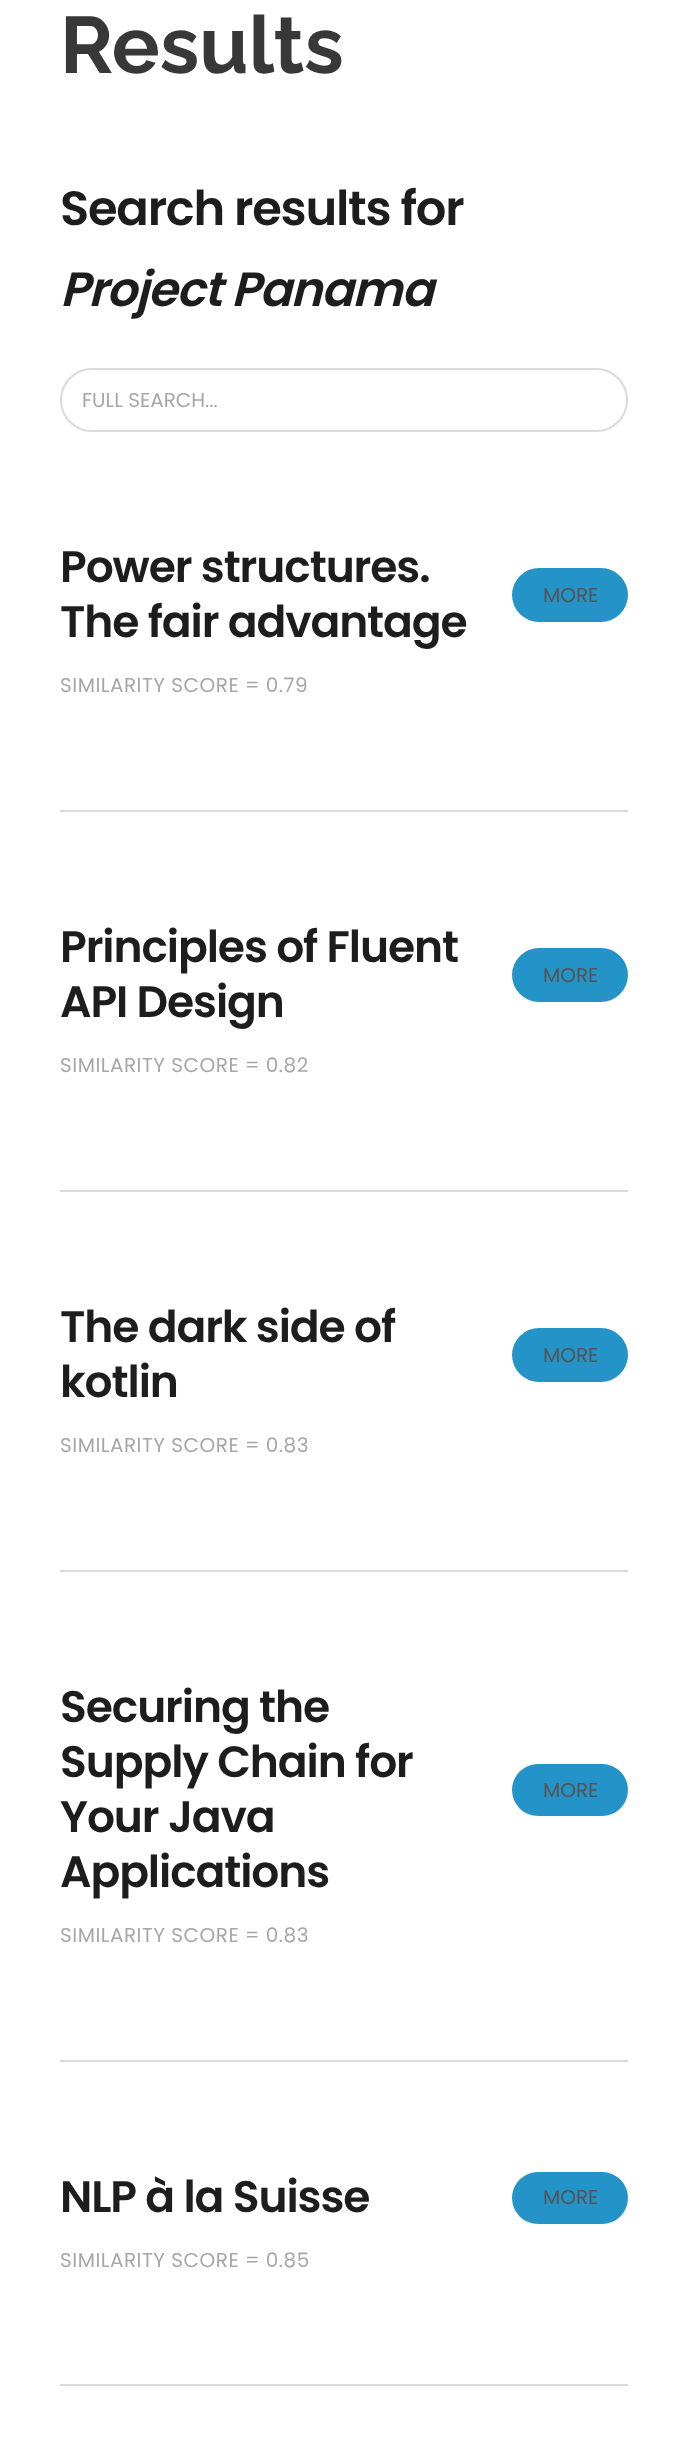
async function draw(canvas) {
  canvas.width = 688;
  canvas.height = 2460;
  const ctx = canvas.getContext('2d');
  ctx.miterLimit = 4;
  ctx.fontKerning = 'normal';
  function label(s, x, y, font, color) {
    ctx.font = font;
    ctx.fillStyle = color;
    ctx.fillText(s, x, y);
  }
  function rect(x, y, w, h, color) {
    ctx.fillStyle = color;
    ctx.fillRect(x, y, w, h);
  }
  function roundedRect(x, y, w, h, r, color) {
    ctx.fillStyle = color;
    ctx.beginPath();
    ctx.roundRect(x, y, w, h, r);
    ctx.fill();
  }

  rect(0, 0, 688, 2460, '#fff');
  label('Results', 60, 73, 'bold 80px Raleway', '#383838');
  ctx.letterSpacing = '-1.25px';
  label('Search results for', 60, 225, '600 48px Poppins', '#1d1d1d');
  label('Project Panama', 60, 306, 'italic 600 48px Poppins', '#1d1d1d');
  ctx.beginPath();
  ctx.roundRect(61, 369, 566, 62, 31);
  ctx.strokeStyle = '#dbdbdb';
  ctx.lineWidth = 2;
  ctx.stroke();
  ctx.letterSpacing = '0px';
  label('FULL SEARCH...', 82, 407, '20px Poppins', '#a7a7a7');
  ctx.letterSpacing = '-1.1px';
  label('Power structures.', 60, 582, '600 44px Poppins', '#1d1d1d');
  label('The fair advantage', 60, 637, '600 44px Poppins', '#1d1d1d');
  roundedRect(512, 568, 116, 54, 27, '#2493c7');
  ctx.letterSpacing = '0px';
  label('MORE', 543, 602, '20px Poppins', '#545454');
  ctx.letterSpacing = '0.5px';
  label('SIMILARITY SCORE = 0.79', 60, 692, '20px Poppins', '#a7a7a7');
  rect(60, 810, 568, 2, '#dbdbdb');
  ctx.letterSpacing = '-1.1px';
  label('Principles of Fluent', 60, 962, '600 44px Poppins', '#1d1d1d');
  label('API Design', 60, 1017, '600 44px Poppins', '#1d1d1d');
  roundedRect(512, 948, 116, 54, 27, '#2493c7');
  ctx.letterSpacing = '0px';
  label('MORE', 543, 982, '20px Poppins', '#545454');
  ctx.letterSpacing = '0.5px';
  label('SIMILARITY SCORE = 0.82', 60, 1072, '20px Poppins', '#a7a7a7');
  rect(60, 1190, 568, 2, '#dbdbdb');
  ctx.letterSpacing = '-1.1px';
  label('The dark side of', 60, 1342, '600 44px Poppins', '#1d1d1d');
  label('kotlin', 60, 1397, '600 44px Poppins', '#1d1d1d');
  roundedRect(512, 1328, 116, 54, 27, '#2493c7');
  ctx.letterSpacing = '0px';
  label('MORE', 543, 1362, '20px Poppins', '#545454');
  ctx.letterSpacing = '0.5px';
  label('SIMILARITY SCORE = 0.83', 60, 1452, '20px Poppins', '#a7a7a7');
  rect(60, 1570, 568, 2, '#dbdbdb');
  ctx.letterSpacing = '-1.1px';
  label('Securing the', 60, 1722, '600 44px Poppins', '#1d1d1d');
  label('Supply Chain for', 60, 1777, '600 44px Poppins', '#1d1d1d');
  label('Your Java', 60, 1832, '600 44px Poppins', '#1d1d1d');
  label('Applications', 60, 1887, '600 44px Poppins', '#1d1d1d');
  roundedRect(512, 1764, 116, 52, 26, '#2493c7');
  ctx.letterSpacing = '0px';
  label('MORE', 543, 1797, '20px Poppins', '#545454');
  ctx.letterSpacing = '0.5px';
  label('SIMILARITY SCORE = 0.83', 60, 1942, '20px Poppins', '#a7a7a7');
  rect(60, 2060, 568, 2, '#dbdbdb');
  ctx.letterSpacing = '-1.1px';
  label('NLP à la Suisse', 60, 2212, '600 44px Poppins', '#1d1d1d');
  roundedRect(512, 2172, 116, 52, 26, '#2493c7');
  ctx.letterSpacing = '0px';
  label('MORE', 543, 2204, '20px Poppins', '#545454');
  ctx.letterSpacing = '0.5px';
  label('SIMILARITY SCORE = 0.85', 60, 2267, '20px Poppins', '#a7a7a7');
  rect(60, 2384, 568, 2, '#dbdbdb');
}

draw(document.querySelector('canvas'));
